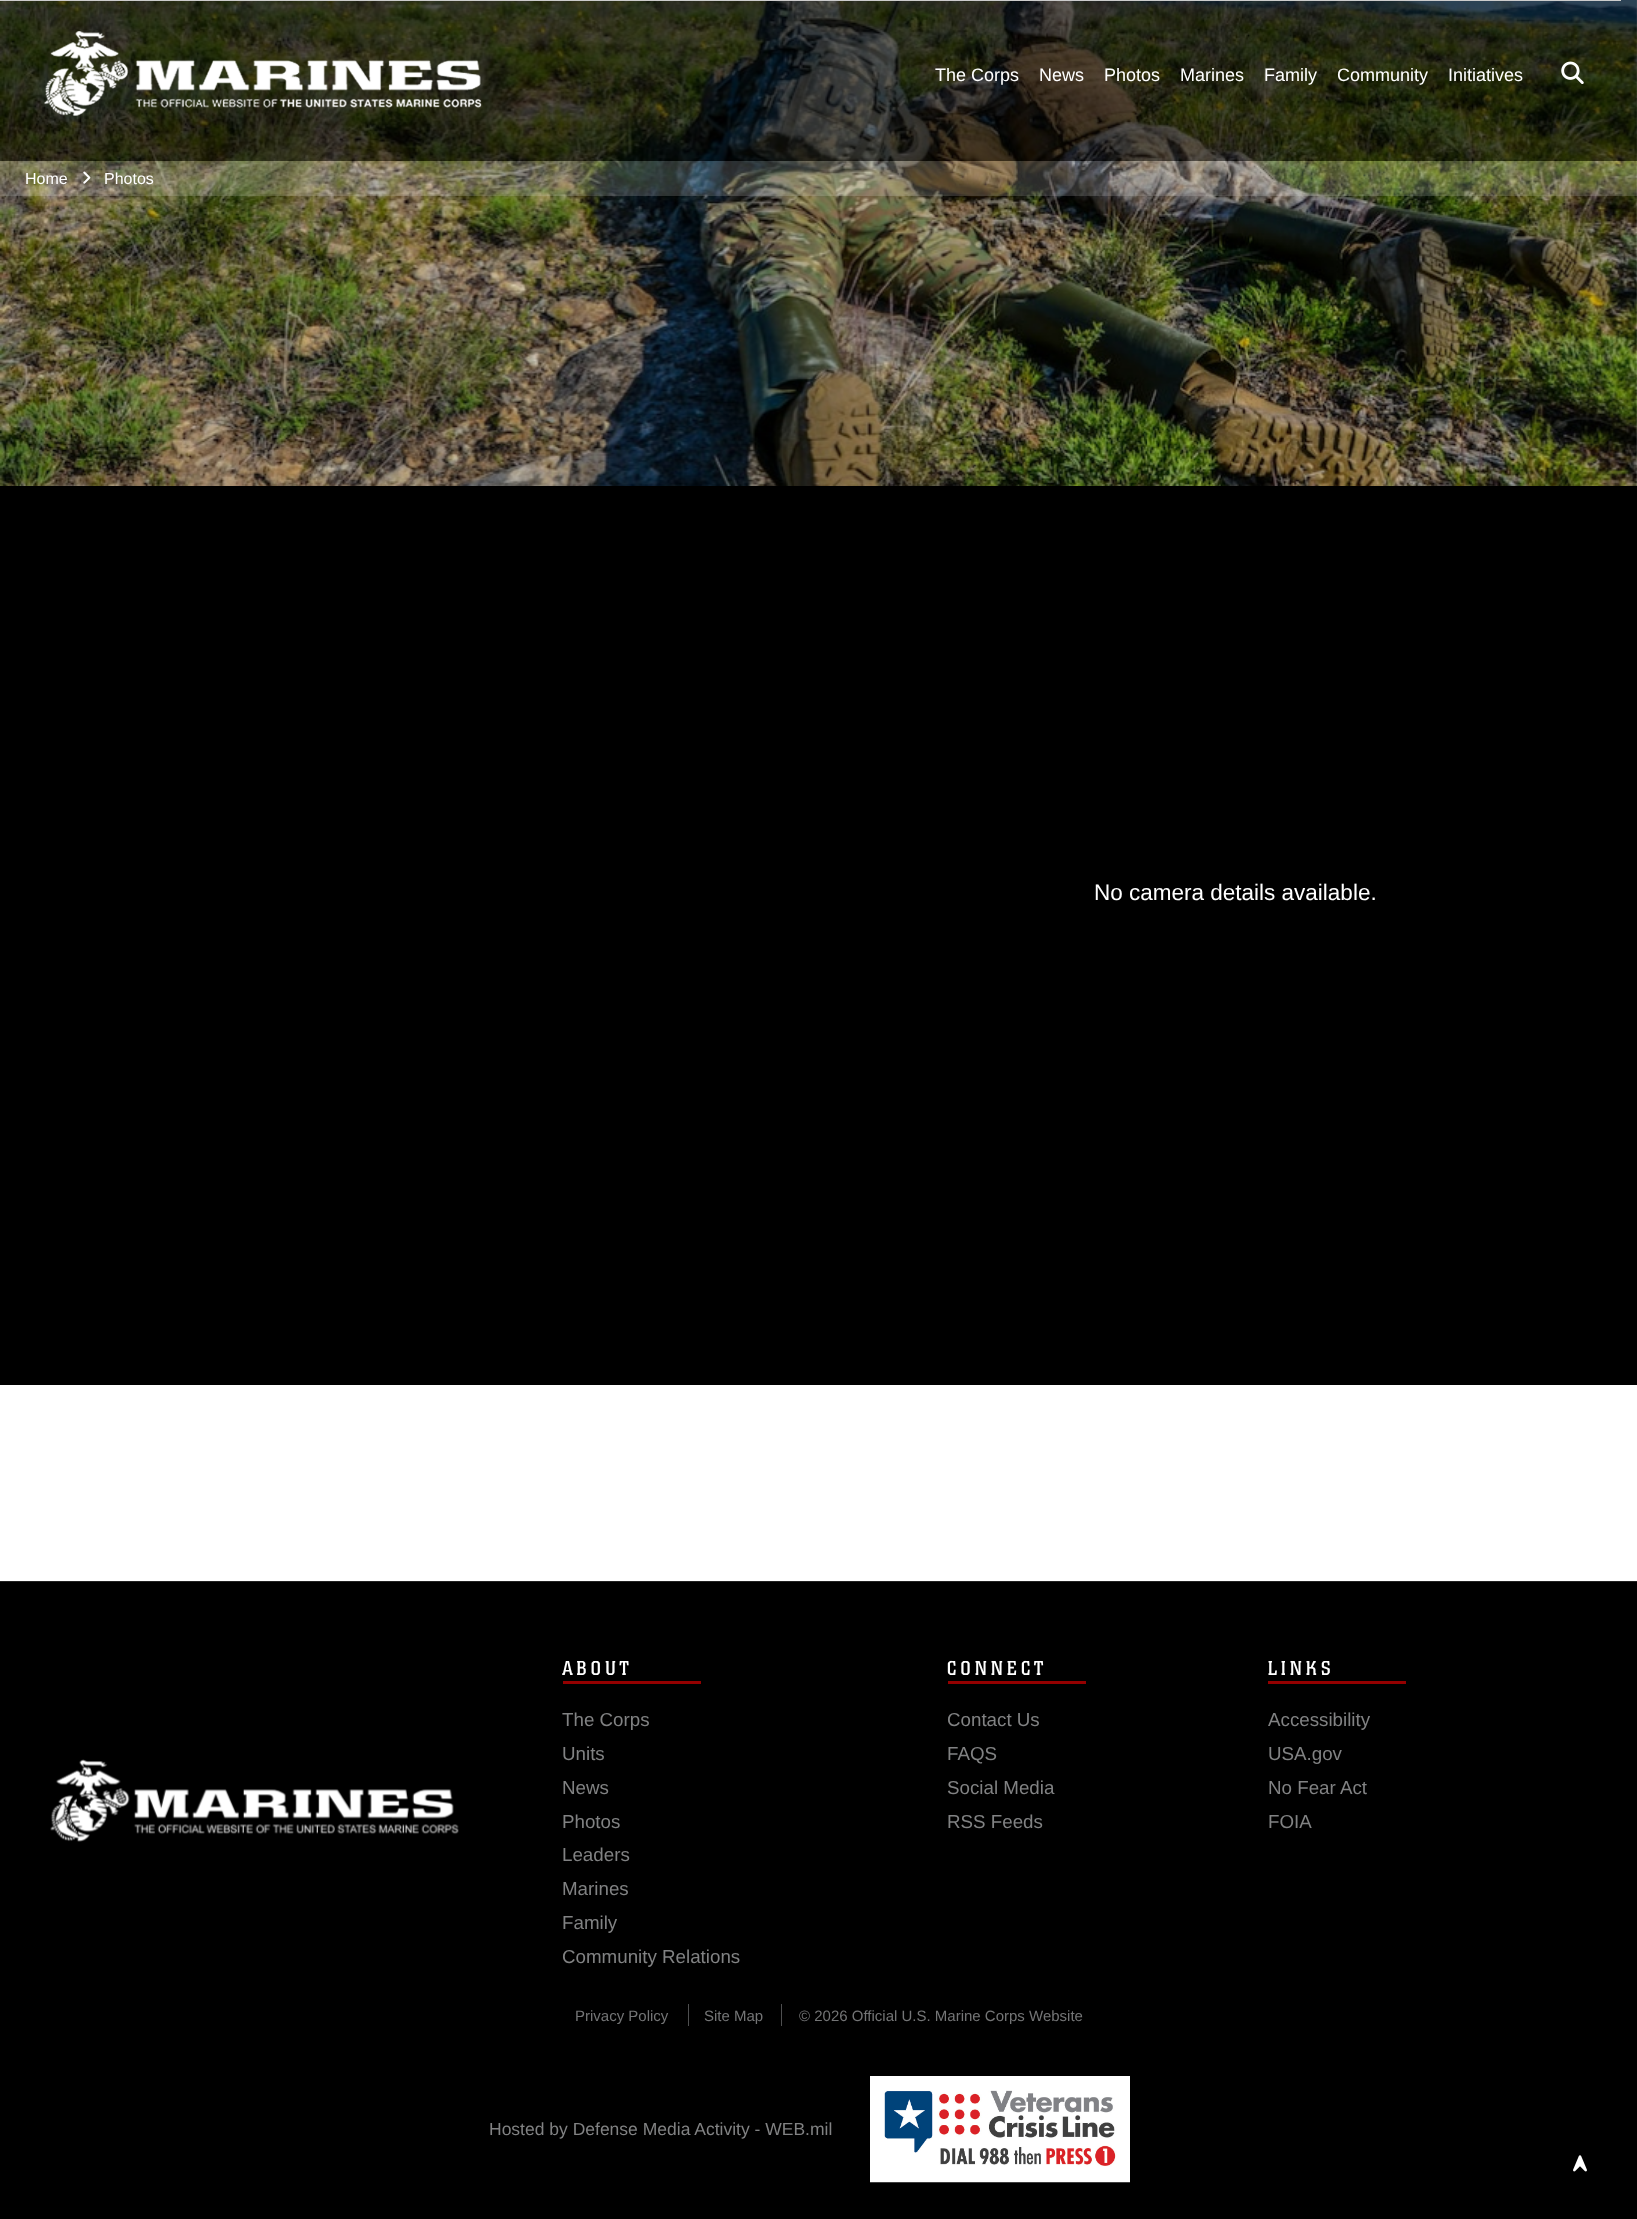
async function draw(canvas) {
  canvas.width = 1637;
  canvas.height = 2219;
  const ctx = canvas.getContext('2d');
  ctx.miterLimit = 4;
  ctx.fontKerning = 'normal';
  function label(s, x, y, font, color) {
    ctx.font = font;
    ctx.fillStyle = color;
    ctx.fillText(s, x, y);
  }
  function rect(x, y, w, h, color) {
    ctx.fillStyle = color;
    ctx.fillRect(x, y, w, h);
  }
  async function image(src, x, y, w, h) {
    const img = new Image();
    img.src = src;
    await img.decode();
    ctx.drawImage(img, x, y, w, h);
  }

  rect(0, 0, 1637, 2219, '#fff');
  await image('assets/img4.png', 0, 0, 1637, 486);
  rect(0, 0, 1637, 161, '#00000080');
  rect(0, 0, 1621, 1, '#ccc');
  await image('assets/img1.png', 44, 31, 438, 85);
  label('The Corps', 935, 81, '18px Liberation Sans', '#fff');
  label('News', 1039, 81, '18px Liberation Sans', '#fff');
  label('Photos', 1104, 81, '18px Liberation Sans', '#fff');
  label('Marines', 1180, 81, '18px Liberation Sans', '#fff');
  label('Family', 1264, 81, '18px Liberation Sans', '#fff');
  label('Community', 1337, 81, '18px Liberation Sans', '#fff');
  label('Initiatives', 1448, 81, '18px Liberation Sans', '#fff');
  await image('assets/img2.png', 1561, 61, 23, 23);
  rect(0, 161, 1637, 35, '#ffffff2b');
  label('Home', 25, 184, '16px Liberation Sans', '#fff');
  await image('assets/img3.png', 83, 171, 8, 13);
  label('Photos', 104, 184, '16px Liberation Sans', '#fff');
  rect(0, 486, 1637, 899, '#000');
  label('No camera details available.', 1094, 900, '22.5px Liberation Sans', '#fff');
  rect(0, 1582, 1637, 637, '#000');
  rect(0, 1581, 1637, 1, '#232323');
  await image('assets/img5.png', 50, 1759, 409, 83);
  ctx.letterSpacing = '3.75px';
  label('ABOUT', 562, 1675, '20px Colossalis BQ', '#fff');
  rect(563, 1681, 138, 3, '#940000');
  ctx.letterSpacing = '0px';
  label('The Corps', 562, 1726, '18.75px Liberation Sans', '#818283');
  label('Units', 562, 1760, '18.75px Liberation Sans', '#818283');
  label('News', 562, 1794, '18.75px Liberation Sans', '#818283');
  label('Photos', 562, 1828, '18.75px Liberation Sans', '#818283');
  label('Leaders', 562, 1861, '18.75px Liberation Sans', '#818283');
  label('Marines', 562, 1895, '18.75px Liberation Sans', '#818283');
  label('Family', 562, 1929, '18.75px Liberation Sans', '#818283');
  label('Community Relations', 562, 1963, '18.75px Liberation Sans', '#818283');
  ctx.letterSpacing = '3.75px';
  label('CONNECT', 947, 1675, '20px Colossalis BQ', '#fff');
  rect(948, 1681, 138, 3, '#940000');
  ctx.letterSpacing = '0px';
  label('Contact Us', 947, 1726, '18.75px Liberation Sans', '#818283');
  label('FAQS', 947, 1760, '18.75px Liberation Sans', '#818283');
  label('Social Media', 947, 1794, '18.75px Liberation Sans', '#818283');
  label('RSS Feeds', 947, 1828, '18.75px Liberation Sans', '#818283');
  ctx.letterSpacing = '3.75px';
  label('LINKS', 1268, 1675, '20px Colossalis BQ', '#fff');
  rect(1268, 1681, 138, 3, '#940000');
  ctx.letterSpacing = '0px';
  label('Accessibility', 1268, 1726, '18.75px Liberation Sans', '#818283');
  label('USA.gov', 1268, 1760, '18.75px Liberation Sans', '#818283');
  label('No Fear Act', 1268, 1794, '18.75px Liberation Sans', '#818283');
  label('FOIA', 1268, 1828, '18.75px Liberation Sans', '#818283');
  label('Privacy Policy', 575, 2021, '15px Liberation Sans', '#747576');
  rect(688, 2004, 1, 22, '#4e4f50');
  label('Site Map', 704, 2021, '15px Liberation Sans', '#747576');
  rect(781, 2004, 1, 22, '#4e4f50');
  label('© 2026 Official U.S. Marine Corps Website', 799, 2021, '15px Liberation Sans', '#747576');
  label('Hosted by Defense Media Activity - WEB.mil', 489, 2135, '17.5px Liberation Sans', '#818283');
  await image('assets/img6.png', 870, 2076, 260, 107);
  await image('assets/img7.png', 1573, 2155, 14, 17);
}

draw(document.querySelector('canvas'));
